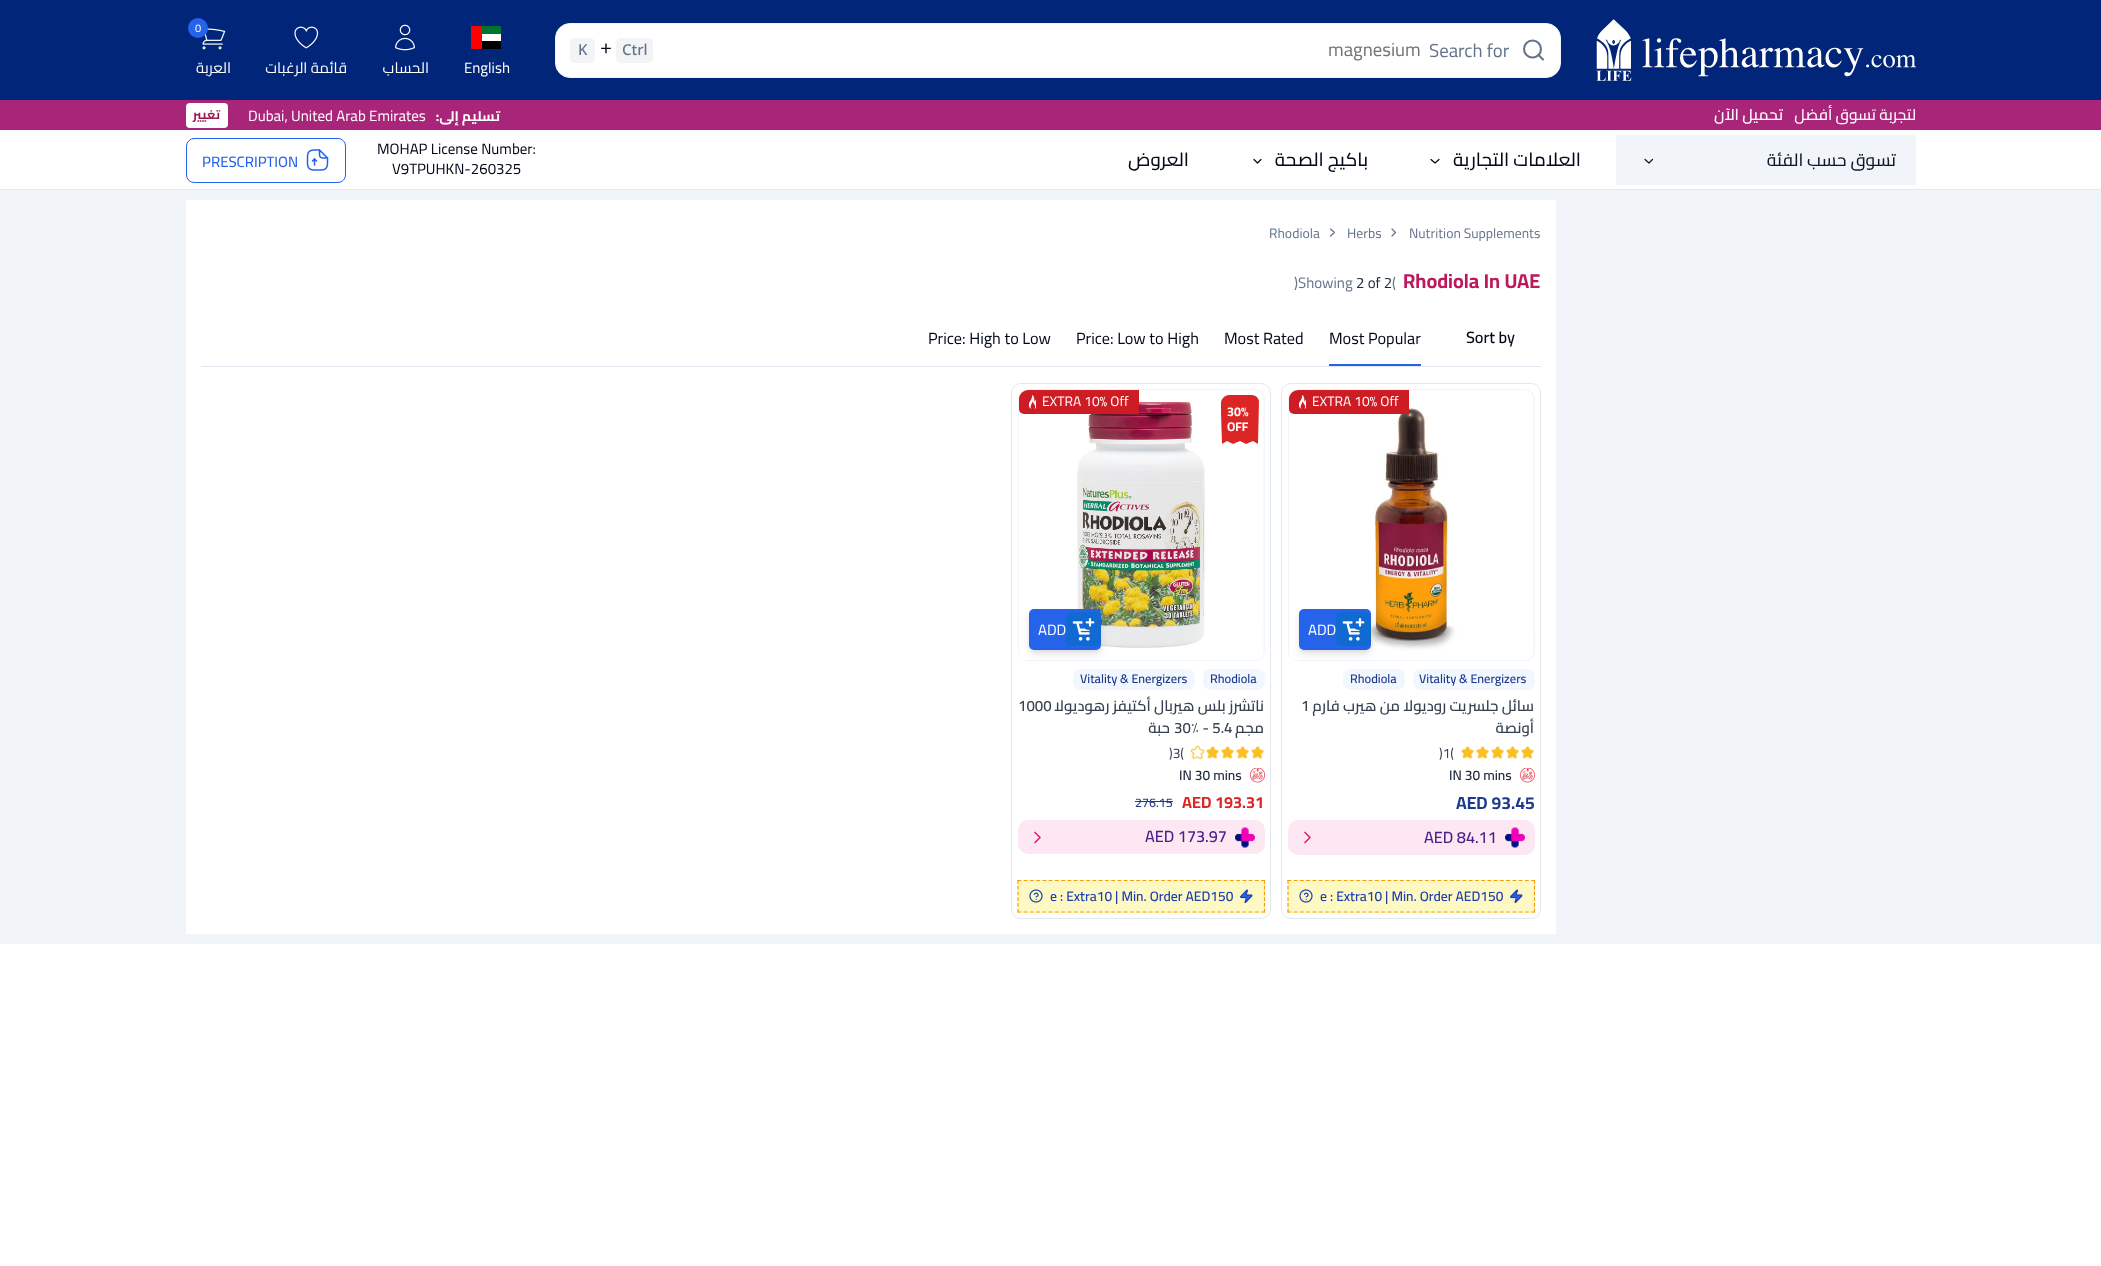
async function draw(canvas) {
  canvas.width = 2101;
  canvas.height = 1266;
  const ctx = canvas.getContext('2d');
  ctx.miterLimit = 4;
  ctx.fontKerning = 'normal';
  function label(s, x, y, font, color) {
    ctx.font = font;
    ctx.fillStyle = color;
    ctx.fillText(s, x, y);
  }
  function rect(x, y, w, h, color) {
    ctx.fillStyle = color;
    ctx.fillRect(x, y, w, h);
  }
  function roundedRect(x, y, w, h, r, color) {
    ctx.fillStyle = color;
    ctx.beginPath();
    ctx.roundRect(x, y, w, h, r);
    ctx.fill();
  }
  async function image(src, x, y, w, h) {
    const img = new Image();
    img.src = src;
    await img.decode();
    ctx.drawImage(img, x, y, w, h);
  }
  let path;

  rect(0, 0, 2101, 1266, '#fff');
  rect(0, 0, 2101, 100, '#002579');
  await image('assets/img1.png', 202, 28, 24, 22);
  ctx.fillStyle = '#2563eb';
  ctx.beginPath();
  ctx.arc(198, 28, 10, 0, 2 * Math.PI);
  ctx.fill();
  label('0', 195, 32, '11px Cairo', '#fff');
  ctx.direction = 'rtl';
  label('العربة', 231, 73, '15px Cairo', '#fff');
  await image('assets/img2.png', 294, 26, 25, 23);
  label('قائمة الرغبات', 347, 73, '15px Cairo', '#fff');
  await image('assets/img3.png', 395, 24, 20, 27);
  label('الحساب', 429, 73, '15px Cairo', '#fff');
  rect(482, 26, 19, 8, '#00732f');
  rect(482, 34, 19, 7, '#fff');
  rect(482, 41, 19, 8, '#000');
  rect(471, 26, 11, 23, '#f00');
  ctx.direction = 'ltr';
  label('English', 464, 73, '15px Cairo', '#fff');
  ctx.beginPath();
  ctx.roundRect(555.5, 23.5, 1005, 54, 14.5);
  ctx.fill();
  ctx.strokeStyle = '#f1f5f9';
  ctx.stroke();
  roundedRect(570, 38, 25, 25, 5, '#f3f4f6');
  label('K', 578, 55, '500 15px Noto Sans', '#64748b');
  label('+', 600, 55, '20px Liberation Mono', '#020817');
  roundedRect(616, 38, 37, 25, 5, '#f3f4f6');
  label('Ctrl', 622, 55, '500 15px Noto Sans', '#64748b');
  label('magnesium', 1328, 56, '18.75px Cairo', '#737373');
  label('Search for', 1429, 57, '18.75px Cairo', '#64748b');
  ctx.beginPath();
  ctx.arc(1532.5, 49, 8.5, 0, 2 * Math.PI);
  ctx.strokeStyle = '#64748b';
  ctx.lineWidth = 2.1;
  ctx.stroke();
  path = new Path2D('M1543 59.5L1538.5 55');
  ctx.lineCap = 'round';
  ctx.lineJoin = 'round';
  ctx.stroke(path);
  await image('assets/img4.png', 1596, 19, 320, 62);
  rect(0, 100, 2101, 30, '#a92579');
  roundedRect(186, 103, 42, 25, 4, '#fff');
  ctx.direction = 'rtl';
  label('تغيير', 220, 119, 'bold 12.5px Cairo', '#9d174d');
  ctx.direction = 'ltr';
  label('Dubai, United Arab Emirates', 248, 121, '15px Cairo', '#fff');
  ctx.direction = 'rtl';
  label('تسليم إلى:', 500, 121, 'bold 13.75px Cairo', '#fff');
  label('تحميل الآن', 1783, 120, '600 15.5px Cairo', '#fff');
  label('لتجربة تسوق أفضل', 1916, 120, '500 15.5px Cairo', '#fff');
  rect(0, 189, 2101, 1, '#e2e8f0');
  ctx.beginPath();
  ctx.roundRect(186.5, 138.5, 159, 44, 7.5);
  ctx.strokeStyle = '#2563eb';
  ctx.lineWidth = 1;
  ctx.lineJoin = 'miter';
  ctx.stroke();
  ctx.direction = 'ltr';
  label('PRESCRIPTION', 202, 167, '500 15px Cairo', '#2563eb');
  await image('assets/img5.png', 306, 149, 23, 22);
  label('MOHAP License Number:', 377, 154, '15px Cairo', '#020817');
  label('V9TPUHKN-260325', 392, 174, '15px Cairo', '#020817');
  ctx.direction = 'rtl';
  label('العروض', 1189, 166, '500 18.75px Cairo', '#020817');
  path = new Path2D('M1254 159.5L1257.5 163L1261 159.5');
  ctx.strokeStyle = '#020817';
  ctx.lineWidth = 1.2;
  ctx.lineJoin = 'round';
  ctx.stroke(path);
  label('باكيج الصحة', 1368, 166, '500 18.75px Cairo', '#020817');
  path = new Path2D('M1431 159.5L1435 163L1439 159.5');
  ctx.stroke(path);
  label('العلامات التجارية', 1581, 166, '500 18.75px Cairo', '#020817');
  rect(1616, 135, 300, 50, '#f1f5f9');
  path = new Path2D('M1645 159.5L1649 163L1652.5 159.5');
  ctx.strokeStyle = '#0f172a';
  ctx.stroke(path);
  label('تسوق حسب الفئة', 1896, 166, '500 17.5px Cairo', '#0f172a');
  rect(0, 190, 2101, 754, '#f1f5f9');
  rect(186, 200, 1370, 734, '#fff');
  ctx.direction = 'ltr';
  label('Rhodiola', 1269, 238, '13.75px Cairo', '#64748b');
  path = new Path2D('M1330.5 236L1334.5 232.5L1330.5 229');
  ctx.strokeStyle = '#64748b';
  ctx.stroke(path);
  label('Herbs', 1347, 238, '13.75px Cairo', '#64748b');
  path = new Path2D('M1392 236L1395.5 232.5L1392 229');
  ctx.stroke(path);
  label('Nutrition Supplements', 1409, 238, '13.75px Cairo', '#64748b');
  label(')', 1294, 288, '15px Cairo', '#64748b');
  label('Showing', 1298, 288, '15px Cairo', '#64748b');
  label('2 of 2', 1356, 288, '15px Cairo', '#1e293b');
  label('(', 1392, 288, '15px Cairo', '#64748b');
  label('Rhodiola In UAE', 1403, 288, 'bold 20px Cairo', '#be185d');
  rect(201, 366, 1340, 1, '#e2e8f0');
  label('Price: High to Low', 928, 344, '16.25px Cairo', '#020817');
  label('Price: Low to High', 1076, 344, '16.25px Cairo', '#020817');
  label('Most Rated', 1224, 344, '16.25px Cairo', '#020817');
  label('Most Popular', 1329, 344, '16.25px Cairo', '#020817');
  rect(1329, 364, 92, 2, '#2563eb');
  label('Sort by', 1466, 343, '600 16.25px Cairo', '#020817');
  ctx.beginPath();
  ctx.roundRect(1011.5, 383.5, 259, 535, 9.5);
  ctx.strokeStyle = '#e2e8f0';
  ctx.lineWidth = 1;
  ctx.lineJoin = 'miter';
  ctx.stroke();
  ctx.fillStyle = '#f1f5f9';
  ctx.beginPath();
  ctx.roundRect(1018.5, 389.5, 246, 271, 9.5);
  ctx.fill();
  ctx.strokeStyle = '#f1f5f9';
  ctx.stroke();
  ctx.save();
  ctx.beginPath();
  ctx.roundRect(1019, 390, 245, 270, 9);
  ctx.clip();
  roundedRect(1019, 390, 245, 245, 10, '#f4f4f5');
  ctx.restore();
  await image('assets/img6.png', 1019, 390, 245, 270);
  ctx.fillStyle = '#ce1c25';
  ctx.beginPath();
  ctx.roundRect(1019, 390, 120, 24, [9, 0, 0, 5]);
  ctx.fill();
  await image('assets/img7.png', 1029, 395, 7, 14);
  label('EXTRA 10% Off', 1042, 406, '13.75px Cairo', '#fff');
  ctx.fillStyle = '#dc2626';
  path = new Path2D('M1221 413L1222 444L1227 441L1233 444L1240 441L1246 444L1253 441L1258 444L1259 401C1258 397 1255 395 1251 395H1229C1225 395 1221 399 1221 403Z');
  ctx.fill(path);
  label('30%', 1227, 416, 'bold 12.5px Cairo', '#fff');
  label('OFF', 1227, 431, 'bold 12.5px Cairo', '#fff');
  ctx.fillStyle = '#0000001a';
  ctx.filter = 'blur(2.5px)';
  ctx.beginPath();
  ctx.roundRect(1031, 614, 68, 36, 2.5);
  ctx.fill();
  ctx.filter = 'none';
  ctx.filter = 'blur(4px)';
  ctx.beginPath();
  ctx.roundRect(1030, 615, 70, 39, 4);
  ctx.fill();
  ctx.filter = 'none';
  roundedRect(1029, 609, 72, 41, 5, '#2563eb');
  label('ADD', 1038, 635, '15px Cairo', '#fff');
  await image('assets/img8.png', 1066, 612, 35, 34);
  roundedRect(1073, 669, 122, 21, 8, '#f1f7ff');
  label('Vitality & Energizers', 1080, 683, '600 12.5px Cairo', '#1e3a8a');
  roundedRect(1203, 669, 62, 21, 8, '#f1f7ff');
  label('Rhodiola', 1210, 683, '600 12.5px Cairo', '#1e3a8a');
  label('1000', 1018, 711, '600 15px Cairo', '#374151');
  ctx.direction = 'rtl';
  label('ناتشرز بلس هيربال أكتيفز رهوديولا', 1264, 711, '600 15px Cairo', '#374151');
  label('حبة', 1170, 733, '600 15px Cairo', '#374151');
  ctx.direction = 'ltr';
  label('30٪ - 5.4', 1174, 733, '600 15px Cairo', '#374151');
  ctx.direction = 'rtl';
  label('مجم', 1264, 733, '600 15px Cairo', '#374151');
  ctx.direction = 'ltr';
  label(')3(', 1169, 758, '13.75px Cairo', '#374151');
  await image('assets/img9.png', 1190, 745, 15, 15);
  await image('assets/img10.png', 1206, 746, 14, 13);
  await image('assets/img10.png', 1221, 746, 14, 13);
  await image('assets/img10.png', 1236, 746, 14, 13);
  await image('assets/img10.png', 1251, 746, 14, 13);
  label('IN 30 mins', 1179, 780, '600 13.75px Cairo', '#1e293b');
  await image('assets/img11.png', 1250, 768, 15, 15);
  label('276.15', 1135, 807, '500 12.5px Cairo', '#1e3a8a');
  rect(1135, 801, 38, 1, '#1e3a8a');
  label('AED 193.31', 1182, 808, 'bold 16.25px Cairo', '#dc2626');
  roundedRect(1018, 820, 247, 34, 10, '#fce7f3');
  path = new Path2D('M1035 842.5L1040 837.5L1035 832.5');
  ctx.strokeStyle = '#db2777';
  ctx.lineWidth = 1.7;
  ctx.lineJoin = 'round';
  ctx.stroke(path);
  label('AED 173.97', 1145, 842, '600 16.25px Cairo', '#4b1f88');
  await image('assets/img12.png', 1235, 827, 20, 21);
  rect(1018, 880, 247, 33, '#fef9c3');
  path = new Path2D('M1017.5 880.5H1265');
  ctx.strokeStyle = '#f59e0b';
  ctx.lineWidth = 1.2;
  ctx.lineCap = 'butt';
  ctx.lineJoin = 'miter';
  ctx.setLineDash([3.75, 2.5]);
  ctx.stroke(path);
  path = new Path2D('M1264.5 880V912.5');
  ctx.setLineDash([3.75, 2]);
  ctx.stroke(path);
  path = new Path2D('M1017.5 912H1265');
  ctx.setLineDash([3.75, 2.5]);
  ctx.stroke(path);
  path = new Path2D('M1018 880V912.5');
  ctx.setLineDash([3.75, 2]);
  ctx.stroke(path);
  await image('assets/img13.png', 1029, 889, 14, 14);
  label('e : Extra10 | Min. Order AED150', 1050, 901, '600 13.75px Cairo', '#1e40af');
  await image('assets/img14.png', 1240, 889, 13, 14);
  ctx.beginPath();
  ctx.roundRect(1281.5, 383.5, 259, 535, 9.5);
  ctx.strokeStyle = '#e2e8f0';
  ctx.lineWidth = 1;
  ctx.setLineDash([]);
  ctx.stroke();
  ctx.fillStyle = '#f1f5f9';
  ctx.beginPath();
  ctx.roundRect(1288.5, 389.5, 246, 271, 9.5);
  ctx.fill();
  ctx.strokeStyle = '#f1f5f9';
  ctx.stroke();
  ctx.save();
  ctx.beginPath();
  ctx.roundRect(1289, 390, 245, 270, 9);
  ctx.clip();
  roundedRect(1289, 390, 245, 245, 10, '#f4f4f5');
  ctx.restore();
  await image('assets/img15.png', 1289, 390, 245, 270);
  ctx.fillStyle = '#ce1c25';
  ctx.beginPath();
  ctx.roundRect(1289, 390, 120, 24, [9, 0, 0, 5]);
  ctx.fill();
  await image('assets/img7.png', 1299, 395, 7, 14);
  label('EXTRA 10% Off', 1312, 406, '13.75px Cairo', '#fff');
  ctx.fillStyle = '#0000001a';
  ctx.filter = 'blur(2.5px)';
  ctx.beginPath();
  ctx.roundRect(1301, 614, 68, 36, 2.5);
  ctx.fill();
  ctx.filter = 'none';
  ctx.filter = 'blur(4px)';
  ctx.beginPath();
  ctx.roundRect(1300, 615, 70, 39, 4);
  ctx.fill();
  ctx.filter = 'none';
  roundedRect(1299, 609, 72, 41, 5, '#2563eb');
  label('ADD', 1308, 635, '15px Cairo', '#fff');
  await image('assets/img16.png', 1336, 612, 35, 34);
  roundedRect(1343, 669, 62, 21, 8, '#f1f7ff');
  label('Rhodiola', 1350, 683, '600 12.5px Cairo', '#1e3a8a');
  roundedRect(1413, 669, 122, 21, 8, '#f1f7ff');
  label('Vitality & Energizers', 1419, 683, '600 12.5px Cairo', '#1e3a8a');
  label('1', 1301, 711, '600 15px Cairo', '#374151');
  ctx.direction = 'rtl';
  label('سائل جلسريت روديولا من هيرب فارم', 1534, 711, '600 15px Cairo', '#374151');
  label('أونصة', 1534, 733, '600 15px Cairo', '#374151');
  ctx.direction = 'ltr';
  label(')1(', 1439, 758, '13.75px Cairo', '#374151');
  await image('assets/img10.png', 1461, 746, 14, 13);
  await image('assets/img10.png', 1476, 746, 14, 13);
  await image('assets/img10.png', 1491, 746, 14, 13);
  await image('assets/img10.png', 1506, 746, 14, 13);
  await image('assets/img10.png', 1521, 746, 14, 13);
  label('IN 30 mins', 1449, 780, '600 13.75px Cairo', '#1e293b');
  await image('assets/img11.png', 1520, 768, 15, 15);
  label('AED 93.45', 1456, 809, 'bold 17.5px Cairo', '#1e3a8a');
  roundedRect(1288, 820, 247, 35, 10, '#fce7f3');
  path = new Path2D('M1305 842.5L1310 837.5L1305 832.5');
  ctx.strokeStyle = '#db2777';
  ctx.lineWidth = 1.7;
  ctx.lineCap = 'round';
  ctx.lineJoin = 'round';
  ctx.stroke(path);
  label('AED 84.11', 1424, 843, '600 16.25px Cairo', '#4b1f88');
  await image('assets/img12.png', 1505, 827, 20, 21);
  rect(1288, 880, 247, 33, '#fef9c3');
  path = new Path2D('M1287.5 880.5H1535');
  ctx.strokeStyle = '#f59e0b';
  ctx.lineWidth = 1.2;
  ctx.lineCap = 'butt';
  ctx.lineJoin = 'miter';
  ctx.setLineDash([3.75, 2.5]);
  ctx.stroke(path);
  path = new Path2D('M1534.5 880V912.5');
  ctx.setLineDash([3.75, 2]);
  ctx.stroke(path);
  path = new Path2D('M1287.5 912H1535');
  ctx.setLineDash([3.75, 2.5]);
  ctx.stroke(path);
  path = new Path2D('M1288 880V912.5');
  ctx.setLineDash([3.75, 2]);
  ctx.stroke(path);
  await image('assets/img13.png', 1299, 889, 14, 14);
  label('e : Extra10 | Min. Order AED150', 1320, 901, '600 13.75px Cairo', '#1e40af');
  await image('assets/img14.png', 1510, 889, 13, 14);
}

draw(document.querySelector('canvas'));
